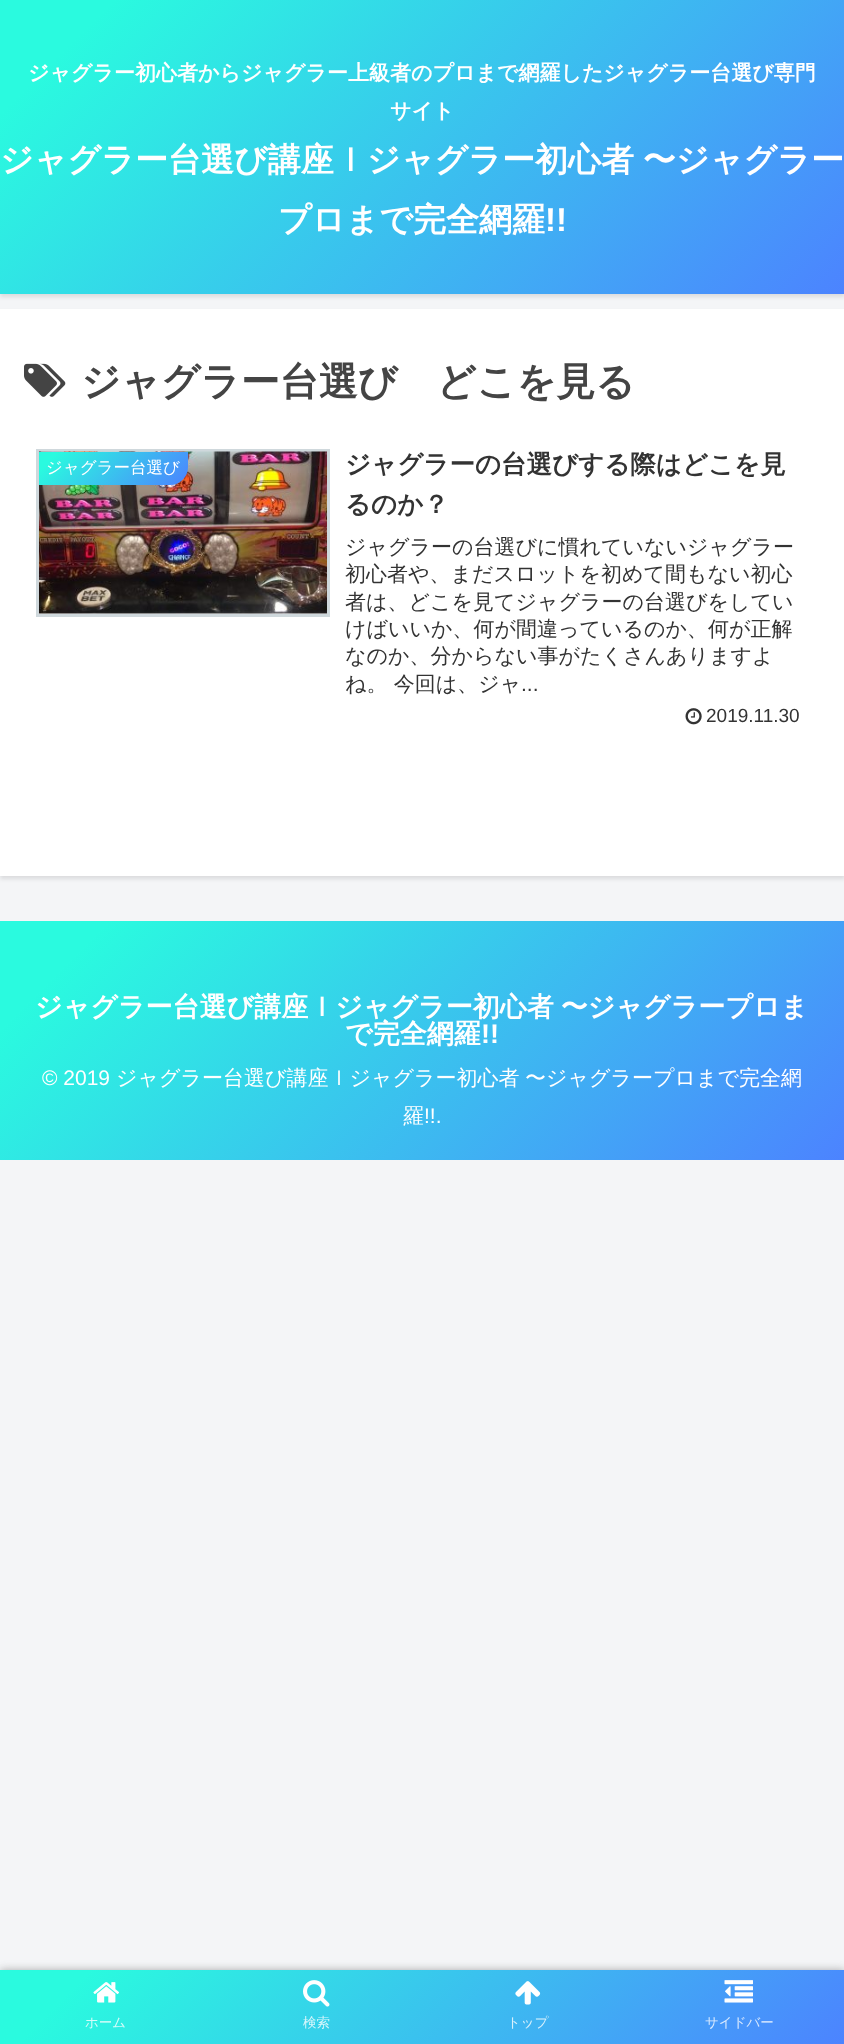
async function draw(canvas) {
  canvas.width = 844;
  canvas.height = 2044;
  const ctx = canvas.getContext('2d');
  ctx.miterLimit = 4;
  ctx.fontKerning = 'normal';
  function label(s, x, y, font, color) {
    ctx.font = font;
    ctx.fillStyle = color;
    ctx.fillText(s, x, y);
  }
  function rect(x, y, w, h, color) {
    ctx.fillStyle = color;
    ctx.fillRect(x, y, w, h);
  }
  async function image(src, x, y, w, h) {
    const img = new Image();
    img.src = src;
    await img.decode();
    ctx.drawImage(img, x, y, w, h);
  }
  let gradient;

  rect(0, 0, 844, 2044, '#f4f5f7');
  ctx.fillStyle = '#0000001a';
  ctx.filter = 'blur(2px)';
  ctx.beginPath();
  ctx.rect(0, 3, 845, 294);
  ctx.fill();
  ctx.filter = 'none';
  gradient = ctx.createLinearGradient(138, -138, 707, 432);
  gradient.addColorStop(0.1, '#2afadf');
  gradient.addColorStop(1, '#4c83ff');
  ctx.fillStyle = gradient;
  ctx.fillRect(0, 0, 844, 294);
  label('ジャグラー初心者からジャグラー上級者のプロまで網羅したジャグラー台選び専門', 28, 80, 'bold 21px WenQuanYi Zen Hei', '#fff');
  label('サイト', 390, 118, 'bold 21px WenQuanYi Zen Hei', '#fff');
  ctx.wordSpacing = '-1px';
  label('ジャグラー台選び講座ｌジャグラー初心者 〜ジャグラー', 0, 171, 'bold 33px WenQuanYi Zen Hei', '#fff');
  ctx.wordSpacing = '0px';
  label('プロまで完全網羅', 278, 231, 'bold 33px WenQuanYi Zen Hei', '#fff');
  label('!!', 545, 231, 'bold 33px Liberation Sans', '#fff');
  ctx.fillStyle = '#0000001a';
  ctx.filter = 'blur(2px)';
  ctx.beginPath();
  ctx.rect(0, 312, 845, 567);
  ctx.fill();
  ctx.filter = 'none';
  rect(0, 309, 844, 567, '#fff');
  await image('assets/img1.png', 24, 363, 42, 34);
  label('ジャグラー台選び　どこを見る', 81, 395, 'bold 39px WenQuanYi Zen Hei', '#444');
  ctx.strokeStyle = '#cfd8dc';
  ctx.lineWidth = 3;
  ctx.strokeRect(37.5, 450.5, 291, 165);
  await image('assets/img2.png', 39, 451, 288, 163);
  gradient = ctx.createLinearGradient(68, 423, 159, 513);
  gradient.addColorStop(0.1, '#2afadf');
  gradient.addColorStop(1, '#4c83ff');
  ctx.fillStyle = gradient;
  ctx.beginPath();
  ctx.roundRect(39, 452, 149, 33, [0, 0, 18, 0]);
  ctx.fill();
  label('ジャグラー台選び', 46, 473, '500 16.5px WenQuanYi Zen Hei', '#fff');
  label('ジャグラーの台選びする際はどこを見', 345, 473, 'bold 25.5px WenQuanYi Zen Hei', '#333');
  label('るのか？', 345, 513, 'bold 25.5px WenQuanYi Zen Hei', '#333');
  label('ジャグラーの台選びに慣れていないジャグラー', 345, 554, '500 21px WenQuanYi Zen Hei', '#333');
  label('初心者や、まだスロットを初めて間もない初心', 345, 581, '500 21px WenQuanYi Zen Hei', '#333');
  label('者は、どこを見てジャグラーの台選びをしてい', 345, 609, '500 21px WenQuanYi Zen Hei', '#333');
  label('けばいいか、何が間違っているのか、何が正解', 345, 636, '500 21px WenQuanYi Zen Hei', '#333');
  label('なのか、分からない事がたくさんありますよ', 345, 663, '500 21px WenQuanYi Zen Hei', '#333');
  label('ね。 今回は、ジャ', 345, 691, '500 21px WenQuanYi Zen Hei', '#333');
  label('...', 521, 691, '21px Liberation Sans', '#333');
  await image('assets/img3.png', 685, 708, 17, 17);
  label('2019.11.30', 706, 722, '19px Liberation Sans', '#333');
  gradient = ctx.createLinearGradient(151, 770, 693, 1311);
  gradient.addColorStop(0.1, '#2afadf');
  gradient.addColorStop(1, '#4c83ff');
  ctx.fillStyle = gradient;
  ctx.fillRect(0, 921, 844, 239);
  ctx.wordSpacing = '-1px';
  label('ジャグラー台選び講座ｌジャグラー初心者 〜ジャグラープロま', 35, 1016, 'bold 27px WenQuanYi Zen Hei', '#fff');
  ctx.wordSpacing = '0px';
  label('で完全網羅', 345, 1043, 'bold 27px WenQuanYi Zen Hei', '#fff');
  label('!!', 481, 1043, 'bold 27px Liberation Sans', '#fff');
  label('© 2019', 42, 1085, '21px Liberation Sans', '#fff');
  label('ジャグラー台選び講座ｌジャグラー初心者', 116, 1085, '500 21px WenQuanYi Zen Hei', '#fff');
  label('〜ジャグラープロまで完全網', 525, 1085, '500 21px WenQuanYi Zen Hei', '#fff');
  label('羅', 403, 1123, '500 21px WenQuanYi Zen Hei', '#fff');
  label('!!.', 424, 1123, '21px Liberation Sans', '#fff');
  ctx.fillStyle = '#a9a9a9';
  ctx.filter = 'blur(4px)';
  ctx.beginPath();
  ctx.rect(0, 1970, 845, 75);
  ctx.fill();
  ctx.filter = 'none';
  gradient = ctx.createLinearGradient(192, 1777, 652, 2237);
  gradient.addColorStop(0.1, '#2afadf');
  gradient.addColorStop(1, '#4c83ff');
  ctx.fillStyle = gradient;
  ctx.fillRect(0, 1970, 844, 74);
  await image('assets/img4.png', 93, 1982, 26, 21);
  label('ホーム', 85, 2027, '500 13.5px WenQuanYi Zen Hei', '#d5fcf9');
  await image('assets/img5.png', 303, 1980, 27, 27);
  label('検索', 303, 2027, '500 13.5px WenQuanYi Zen Hei', '#d7f6fb');
  await image('assets/img6.png', 515, 1981, 26, 24);
  label('トップ', 507, 2027, '500 13.5px WenQuanYi Zen Hei', '#d8f0fc');
  await image('assets/img7.png', 724, 1980, 29, 23);
  label('サイドバー', 705, 2027, '500 13.5px WenQuanYi Zen Hei', '#daeafe');
}

draw(document.querySelector('canvas'));
